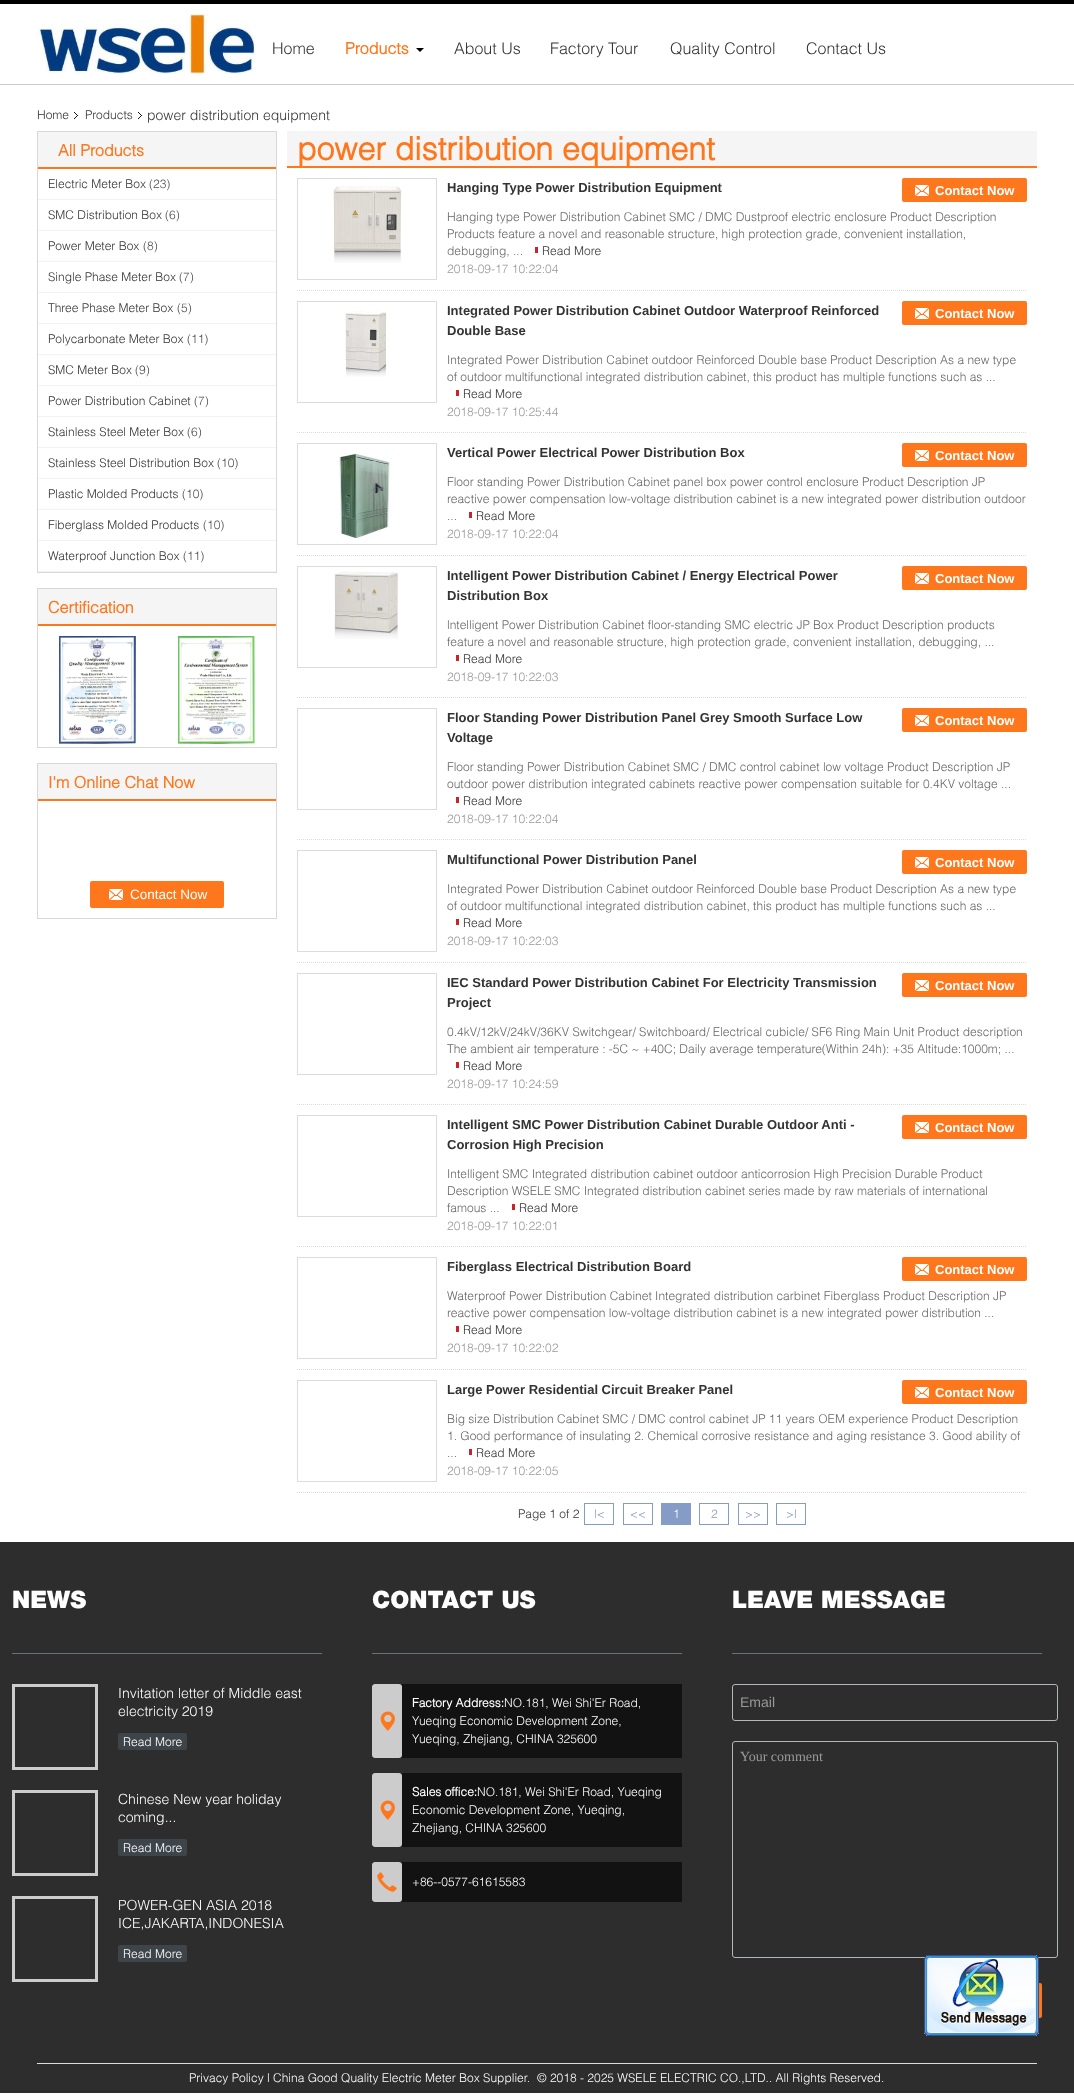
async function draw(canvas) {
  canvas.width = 1074;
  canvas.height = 2098;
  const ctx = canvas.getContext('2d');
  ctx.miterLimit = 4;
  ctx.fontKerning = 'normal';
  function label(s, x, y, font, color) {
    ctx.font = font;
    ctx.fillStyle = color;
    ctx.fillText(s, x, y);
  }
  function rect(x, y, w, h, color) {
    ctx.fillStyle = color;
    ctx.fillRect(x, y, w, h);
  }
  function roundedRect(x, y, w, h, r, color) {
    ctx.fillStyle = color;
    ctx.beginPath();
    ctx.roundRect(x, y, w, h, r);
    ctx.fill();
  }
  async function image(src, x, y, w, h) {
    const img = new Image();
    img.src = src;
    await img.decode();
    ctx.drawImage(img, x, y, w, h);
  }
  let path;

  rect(0, 0, 1074, 2098, '#fff');
  rect(0, 0, 1074, 4, '#000');
  rect(0, 84, 1074, 1, '#ccc');
  await image('assets/img1.png', 37, 14, 219, 60);
  label('Home', 272, 54, '300 16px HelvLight', '#333');
  label('Products', 345, 54, 'bold 16px HelvLight', '#ff771c');
  ctx.fillStyle = '#000';
  path = new Path2D('M416 48H424L420 52Z');
  ctx.fill(path);
  label('About Us', 454, 54, '300 16px HelvLight', '#333');
  label('Factory Tour', 550, 54, '300 16px HelvLight', '#333');
  label('Quality Control', 670, 54, '300 16px HelvLight', '#333');
  label('Contact Us', 806, 54, '300 16px HelvLight', '#333');
  label('Home', 37, 119, '300 12px HelvLight', '#333');
  await image('assets/img2.png', 74, 112, 4, 7);
  label('Products', 85, 119, '300 12px HelvLight', '#333');
  await image('assets/img2.png', 138, 112, 4, 7);
  label('power distribution equipment', 147, 120, '300 14px HelvLight', '#333');
  ctx.strokeStyle = '#d8d8d8';
  ctx.strokeRect(37.5, 131.5, 239, 441);
  rect(38, 132, 238, 35, '#f5f5f5');
  rect(38, 167, 238, 2, '#ff771c');
  label('All Products', 58, 156, 'bold 16px HelvLight', '#ff771c');
  rect(38, 199, 238, 1, '#f0f4f6');
  label('Electric Meter Box', 48, 188, '300 12px HelvLight', '#333');
  label('(23)', 149, 188, '300 12px HelvLight', '#4e4e4e');
  rect(38, 230, 238, 1, '#f0f4f6');
  label('SMC Distribution Box', 48, 219, '300 12px HelvLight', '#333');
  label('(6)', 165, 219, '300 12px HelvLight', '#4e4e4e');
  rect(38, 261, 238, 1, '#f0f4f6');
  label('Power Meter Box', 48, 250, '300 12px HelvLight', '#333');
  label('(8)', 143, 250, '300 12px HelvLight', '#4e4e4e');
  rect(38, 292, 238, 1, '#f0f4f6');
  label('Single Phase Meter Box', 48, 281, '300 12px HelvLight', '#333');
  label('(7)', 179, 281, '300 12px HelvLight', '#4e4e4e');
  rect(38, 323, 238, 1, '#f0f4f6');
  label('Three Phase Meter Box', 48, 312, '300 12px HelvLight', '#333');
  label('(5)', 177, 312, '300 12px HelvLight', '#4e4e4e');
  rect(38, 354, 238, 1, '#f0f4f6');
  label('Polycarbonate Meter Box', 48, 343, '300 12px HelvLight', '#333');
  label('(11)', 187, 343, '300 12px HelvLight', '#4e4e4e');
  rect(38, 385, 238, 1, '#f0f4f6');
  label('SMC Meter Box', 48, 374, '300 12px HelvLight', '#333');
  label('(9)', 135, 374, '300 12px HelvLight', '#4e4e4e');
  rect(38, 416, 238, 1, '#f0f4f6');
  label('Power Distribution Cabinet', 48, 405, '300 12px HelvLight', '#333');
  label('(7)', 194, 405, '300 12px HelvLight', '#4e4e4e');
  rect(38, 447, 238, 1, '#f0f4f6');
  label('Stainless Steel Meter Box', 48, 436, '300 12px HelvLight', '#333');
  label('(6)', 187, 436, '300 12px HelvLight', '#4e4e4e');
  rect(38, 478, 238, 1, '#f0f4f6');
  label('Stainless Steel Distribution Box', 48, 467, '300 12px HelvLight', '#333');
  label('(10)', 217, 467, '300 12px HelvLight', '#4e4e4e');
  rect(38, 509, 238, 1, '#f0f4f6');
  label('Plastic Molded Products', 48, 498, '300 12px HelvLight', '#333');
  label('(10)', 182, 498, '300 12px HelvLight', '#4e4e4e');
  rect(38, 540, 238, 1, '#f0f4f6');
  label('Fiberglass Molded Products', 48, 529, '300 12px HelvLight', '#333');
  label('(10)', 203, 529, '300 12px HelvLight', '#4e4e4e');
  rect(38, 571, 238, 1, '#f0f4f6');
  label('Waterproof Junction Box', 48, 560, '300 12px HelvLight', '#333');
  label('(11)', 183, 560, '300 12px HelvLight', '#4e4e4e');
  ctx.strokeRect(37.5, 588.5, 239, 159);
  rect(38, 589, 238, 35, '#f5f5f5');
  rect(38, 624, 238, 2, '#ff771c');
  label('Certification', 48, 613, 'bold 16px HelvLight', '#ff771c');
  await image('assets/img3.png', 59, 636, 77, 108);
  await image('assets/img4.png', 178, 636, 77, 108);
  ctx.strokeRect(37.5, 763.5, 239, 155);
  rect(38, 764, 238, 35, '#f5f5f5');
  rect(38, 799, 238, 2, '#ff771c');
  label('I\'m Online Chat Now', 48, 788, 'bold 16px HelvLight', '#ff771c');
  roundedRect(90, 881, 134, 27, 2, '#ff771c');
  await image('assets/img5.png', 109, 889, 14, 11);
  label('Contact Now', 130, 899, '13.5px Liberation Sans', '#fff');
  rect(287, 131, 750, 35, '#f5f5f5');
  rect(287, 166, 750, 2, '#ff771c');
  ctx.save();
  ctx.beginPath();
  ctx.rect(287, 131, 750, 35);
  ctx.clip();
  label('power distribution equipment', 297, 160, 'bold 32px HelvLight', '#ff771c');
  ctx.restore();
  path = new Path2D('M297 290.5H1027');
  ctx.strokeStyle = '#dcdcdc';
  ctx.setLineDash([1, 1]);
  ctx.stroke(path);
  ctx.setLineDash([]);
  ctx.strokeRect(297.5, 178.5, 139, 101);
  await image('assets/img6.png', 333, 186, 69, 77);
  label('Hanging Type Power Distribution Equipment', 447, 192, 'bold 13px Liberation Sans', '#333');
  roundedRect(902, 178, 125, 24, 2, '#ff771c');
  await image('assets/img5.png', 915, 185, 14, 11);
  label('Contact Now', 935, 195, 'bold 13px Liberation Sans', '#fff');
  label('Hanging type Power Distribution Cabinet SMC / DMC Dustproof electric enclosure Product Description', 447, 221, '300 12px HelvLight', '#666');
  label('Products feature a novel and reasonable structure, high protection grade, convenient installation,', 447, 238, '300 12px HelvLight', '#666');
  label('debugging, ...', 447, 255, '300 12px HelvLight', '#666');
  label('Read More', 542, 255, '300 12px HelvLight', '#333');
  rect(535, 247, 3, 6, '#c9242b');
  label('2018-09-17 10:22:04', 447, 273, '300 12px HelvLight', '#999');
  path = new Path2D('M297 432.5H1027');
  ctx.setLineDash([1, 1]);
  ctx.stroke(path);
  ctx.setLineDash([]);
  ctx.strokeRect(297.5, 301.5, 139, 101);
  await image('assets/img7.png', 345, 311, 43, 66);
  label('Integrated Power Distribution Cabinet Outdoor Waterproof Reinforced', 447, 315, 'bold 13px Liberation Sans', '#333');
  roundedRect(902, 301, 125, 24, 2, '#ff771c');
  await image('assets/img5.png', 915, 308, 14, 11);
  label('Contact Now', 935, 318, 'bold 13px Liberation Sans', '#fff');
  label('Double Base', 447, 335, 'bold 13px Liberation Sans', '#333');
  label('Integrated Power Distribution Cabinet outdoor Reinforced Double base Product Description As a new type', 447, 364, '300 12px HelvLight', '#666');
  label('of outdoor multifunctional integrated distribution cabinet, this product has multiple functions such as ...', 447, 381, '300 12px HelvLight', '#666');
  label('Read More', 463, 398, '300 12px HelvLight', '#333');
  rect(456, 390, 3, 6, '#c9242b');
  label('2018-09-17 10:25:44', 447, 416, '300 12px HelvLight', '#999');
  path = new Path2D('M297 555.5H1027');
  ctx.setLineDash([1, 1]);
  ctx.stroke(path);
  ctx.setLineDash([]);
  ctx.strokeRect(297.5, 443.5, 139, 101);
  await image('assets/img8.png', 339, 454, 51, 85);
  label('Vertical Power Electrical Power Distribution Box', 447, 457, 'bold 13px Liberation Sans', '#333');
  roundedRect(902, 443, 125, 24, 2, '#ff771c');
  await image('assets/img5.png', 915, 450, 14, 11);
  label('Contact Now', 935, 460, 'bold 13px Liberation Sans', '#fff');
  label('Floor standing Power Distribution Cabinet panel box power control enclosure Product Description JP', 447, 486, '300 12px HelvLight', '#666');
  label('reactive power compensation low-voltage distribution cabinet is a new integrated power distribution outdoor', 447, 503, '300 12px HelvLight', '#666');
  label('...', 447, 520, '300 12px HelvLight', '#666');
  label('Read More', 476, 520, '300 12px HelvLight', '#333');
  rect(469, 512, 3, 6, '#c9242b');
  label('2018-09-17 10:22:04', 447, 538, '300 12px HelvLight', '#999');
  path = new Path2D('M297 697.5H1027');
  ctx.setLineDash([1, 1]);
  ctx.stroke(path);
  ctx.setLineDash([]);
  ctx.strokeRect(297.5, 566.5, 139, 101);
  await image('assets/img9.png', 334, 571, 64, 68);
  label('Intelligent Power Distribution Cabinet / Energy Electrical Power', 447, 580, 'bold 13px Liberation Sans', '#333');
  roundedRect(902, 566, 125, 24, 2, '#ff771c');
  await image('assets/img5.png', 915, 573, 14, 11);
  label('Contact Now', 935, 583, 'bold 13px Liberation Sans', '#fff');
  label('Distribution Box', 447, 600, 'bold 13px Liberation Sans', '#333');
  label('lntelligent Power Distribution Cabinet floor-standing SMC electric JP Box Product Description products', 447, 629, '300 12px HelvLight', '#666');
  label('feature a novel and reasonable structure, high protection grade, convenient installation, debugging, ...', 447, 646, '300 12px HelvLight', '#666');
  label('Read More', 463, 663, '300 12px HelvLight', '#333');
  rect(456, 655, 3, 6, '#c9242b');
  label('2018-09-17 10:22:03', 447, 681, '300 12px HelvLight', '#999');
  path = new Path2D('M297 839.5H1027');
  ctx.setLineDash([1, 1]);
  ctx.stroke(path);
  ctx.setLineDash([]);
  ctx.strokeRect(297.5, 708.5, 139, 101);
  label('Floor Standing Power Distribution Panel Grey Smooth Surface Low', 447, 722, 'bold 13px Liberation Sans', '#333');
  roundedRect(902, 708, 125, 24, 2, '#ff771c');
  await image('assets/img5.png', 915, 715, 14, 11);
  label('Contact Now', 935, 725, 'bold 13px Liberation Sans', '#fff');
  label('Voltage', 447, 742, 'bold 13px Liberation Sans', '#333');
  label('Floor standing Power Distribution Cabinet SMC / DMC control cabinet low voltage Product Description JP', 447, 771, '300 12px HelvLight', '#666');
  label('outdoor power distribution integrated cabinets reactive power compensation suitable for 0.4KV voltage ...', 447, 788, '300 12px HelvLight', '#666');
  label('Read More', 463, 805, '300 12px HelvLight', '#333');
  rect(456, 797, 3, 6, '#c9242b');
  label('2018-09-17 10:22:04', 447, 823, '300 12px HelvLight', '#999');
  path = new Path2D('M297 962.5H1027');
  ctx.setLineDash([1, 1]);
  ctx.stroke(path);
  ctx.setLineDash([]);
  ctx.strokeRect(297.5, 850.5, 139, 101);
  label('Multifunctional Power Distribution Panel', 447, 864, 'bold 13px Liberation Sans', '#333');
  roundedRect(902, 850, 125, 24, 2, '#ff771c');
  await image('assets/img5.png', 915, 857, 14, 11);
  label('Contact Now', 935, 867, 'bold 13px Liberation Sans', '#fff');
  label('Integrated Power Distribution Cabinet outdoor Reinforced Double base Product Description As a new type', 447, 893, '300 12px HelvLight', '#666');
  label('of outdoor multifunctional integrated distribution cabinet, this product has multiple functions such as ...', 447, 910, '300 12px HelvLight', '#666');
  label('Read More', 463, 927, '300 12px HelvLight', '#333');
  rect(456, 919, 3, 6, '#c9242b');
  label('2018-09-17 10:22:03', 447, 945, '300 12px HelvLight', '#999');
  path = new Path2D('M297 1104.5H1027');
  ctx.setLineDash([1, 1]);
  ctx.stroke(path);
  ctx.setLineDash([]);
  ctx.strokeRect(297.5, 973.5, 139, 101);
  label('IEC Standard Power Distribution Cabinet For Electricity Transmission', 447, 987, 'bold 13px Liberation Sans', '#333');
  roundedRect(902, 973, 125, 24, 2, '#ff771c');
  await image('assets/img5.png', 915, 980, 14, 11);
  label('Contact Now', 935, 990, 'bold 13px Liberation Sans', '#fff');
  label('Project', 447, 1007, 'bold 13px Liberation Sans', '#333');
  label('0.4kV/12kV/24kV/36KV Switchgear/ Switchboard/ Electrical cubicle/ SF6 Ring Main Unit Product description', 447, 1036, '300 12px HelvLight', '#666');
  label('The ambient air temperature : -5C ~ +40C; Daily average temperature(Within 24h): +35 Altitude:1000m; ...', 447, 1053, '300 12px HelvLight', '#666');
  label('Read More', 463, 1070, '300 12px HelvLight', '#333');
  rect(456, 1062, 3, 6, '#c9242b');
  label('2018-09-17 10:24:59', 447, 1088, '300 12px HelvLight', '#999');
  path = new Path2D('M297 1246.5H1027');
  ctx.setLineDash([1, 1]);
  ctx.stroke(path);
  ctx.setLineDash([]);
  ctx.strokeRect(297.5, 1115.5, 139, 101);
  label('Intelligent SMC Power Distribution Cabinet Durable Outdoor Anti -', 447, 1129, 'bold 13px Liberation Sans', '#333');
  roundedRect(902, 1115, 125, 24, 2, '#ff771c');
  await image('assets/img5.png', 915, 1122, 14, 11);
  label('Contact Now', 935, 1132, 'bold 13px Liberation Sans', '#fff');
  label('Corrosion High Precision', 447, 1149, 'bold 13px Liberation Sans', '#333');
  label('Intelligent SMC Integrated distribution cabinet outdoor anticorrosion High Precision Durable Product', 447, 1178, '300 12px HelvLight', '#666');
  label('Description WSELE SMC Integrated distribution cabinet series made by raw materials of international', 447, 1195, '300 12px HelvLight', '#666');
  label('famous ...', 447, 1212, '300 12px HelvLight', '#666');
  label('Read More', 519, 1212, '300 12px HelvLight', '#333');
  rect(512, 1204, 3, 6, '#c9242b');
  label('2018-09-17 10:22:01', 447, 1230, '300 12px HelvLight', '#999');
  path = new Path2D('M297 1369.5H1027');
  ctx.setLineDash([1, 1]);
  ctx.stroke(path);
  ctx.setLineDash([]);
  ctx.strokeRect(297.5, 1257.5, 139, 101);
  label('Fiberglass Electrical Distribution Board', 447, 1271, 'bold 13px Liberation Sans', '#333');
  roundedRect(902, 1257, 125, 24, 2, '#ff771c');
  await image('assets/img5.png', 915, 1264, 14, 11);
  label('Contact Now', 935, 1274, 'bold 13px Liberation Sans', '#fff');
  label('Waterproof Power Distribution Cabinet Integrated distribution carbinet Fiberglass Product Description JP', 447, 1300, '300 12px HelvLight', '#666');
  label('reactive power compensation low-voltage distribution cabinet is a new integrated power distribution ...', 447, 1317, '300 12px HelvLight', '#666');
  label('Read More', 463, 1334, '300 12px HelvLight', '#333');
  rect(456, 1326, 3, 6, '#c9242b');
  label('2018-09-17 10:22:02', 447, 1352, '300 12px HelvLight', '#999');
  path = new Path2D('M297 1492.5H1027');
  ctx.setLineDash([1, 1]);
  ctx.stroke(path);
  ctx.setLineDash([]);
  ctx.strokeRect(297.5, 1380.5, 139, 101);
  label('Large Power Residential Circuit Breaker Panel', 447, 1394, 'bold 13px Liberation Sans', '#333');
  roundedRect(902, 1380, 125, 24, 2, '#ff771c');
  await image('assets/img5.png', 915, 1387, 14, 11);
  label('Contact Now', 935, 1397, 'bold 13px Liberation Sans', '#fff');
  label('Big size Distribution Cabinet SMC / DMC control cabinet JP 11 years OEM experience Product Description', 447, 1423, '300 12px HelvLight', '#666');
  label('1. Good performance of insulating 2. Chemical corrosive resistance and aging resistance 3. Good ability of', 447, 1440, '300 12px HelvLight', '#666');
  label('...', 447, 1457, '300 12px HelvLight', '#666');
  label('Read More', 476, 1457, '300 12px HelvLight', '#333');
  rect(469, 1449, 3, 6, '#c9242b');
  label('2018-09-17 10:22:05', 447, 1475, '300 12px HelvLight', '#999');
  label('Page 1 of 2', 518, 1518, '300 12px HelvLight', '#333');
  ctx.strokeStyle = '#849cc6';
  ctx.strokeRect(584.5, 1503.5, 29, 21);
  label('|<', 594, 1518, '300 12px HelvLight', '#849cc6');
  ctx.strokeRect(623.5, 1503.5, 29, 21);
  label('<<', 630, 1518, '300 12px HelvLight', '#849cc6');
  rect(661, 1503, 30, 22, '#849cc6');
  label('1', 673, 1518, '300 12px HelvLight', '#fff');
  ctx.strokeRect(699.5, 1503.5, 29, 21);
  label('2', 711, 1518, '300 12px HelvLight', '#849cc6');
  ctx.strokeRect(738.5, 1503.5, 29, 21);
  label('>>', 745, 1518, '300 12px HelvLight', '#849cc6');
  ctx.strokeRect(776.5, 1503.5, 29, 21);
  label('>|', 786, 1518, '300 12px HelvLight', '#849cc6');
  rect(0, 1542, 1074, 551, '#2d2d2d');
  rect(12, 1653, 310, 1, '#6b7275');
  label('NEWS', 12, 1608, '900 24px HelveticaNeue', '#fff');
  path = new Path2D('M13.5 1685.5H96.5V1768.5H13.5Z');
  ctx.strokeStyle = '#ccc';
  ctx.lineWidth = 3;
  ctx.stroke(path);
  label('Invitation letter of Middle east', 118, 1698, '300 14px HelvLight', '#fff');
  label('electricity 2019', 118, 1716, '300 14px HelvLight', '#fff');
  roundedRect(118, 1733, 69, 17, 2, '#3e454a');
  label('Read More', 123, 1746, '300 12px HelvLight', '#fff');
  path = new Path2D('M13.5 1791.5H96.5V1874.5H13.5Z');
  ctx.stroke(path);
  label('Chinese New year holiday', 118, 1804, '300 14px HelvLight', '#fff');
  label('coming...', 118, 1822, '300 14px HelvLight', '#fff');
  roundedRect(118, 1839, 69, 17, 2, '#3e454a');
  label('Read More', 123, 1852, '300 12px HelvLight', '#fff');
  path = new Path2D('M13.5 1897.5H96.5V1980.5H13.5Z');
  ctx.stroke(path);
  label('POWER-GEN ASIA 2018', 118, 1910, '300 14px HelvLight', '#fff');
  label('ICE,JAKARTA,INDONESIA', 118, 1928, '300 14px HelvLight', '#fff');
  roundedRect(118, 1945, 69, 17, 2, '#3e454a');
  label('Read More', 123, 1958, '300 12px HelvLight', '#fff');
  rect(372, 1653, 310, 1, '#6b7275');
  label('CONTACT US', 372, 1608, '900 24px HelveticaNeue', '#fff');
  rect(372, 1684, 310, 74, '#121212');
  roundedRect(372, 1684, 30, 74, 3, '#ccc');
  await image('assets/img10.png', 380, 1711, 15, 20);
  label('Factory Address:', 412, 1707, 'bold 12px HelvLight', '#fff');
  label('NO.181, Wei Shi\'Er Road,', 504, 1707, '300 12px HelvLight', '#fff');
  label('Yueqing Economic Development Zone,', 412, 1725, '300 12px HelvLight', '#fff');
  label('Yueqing, Zhejiang, CHINA 325600', 412, 1743, '300 12px HelvLight', '#fff');
  rect(372, 1773, 310, 74, '#121212');
  roundedRect(372, 1773, 30, 74, 3, '#ccc');
  await image('assets/img10.png', 380, 1800, 15, 20);
  label('Sales office:', 412, 1796, 'bold 12px HelvLight', '#fff');
  label('NO.181, Wei Shi\'Er Road, Yueqing', 477, 1796, '300 12px HelvLight', '#fff');
  label('Economic Development Zone, Yueqing,', 412, 1814, '300 12px HelvLight', '#fff');
  label('Zhejiang, CHINA 325600', 412, 1832, '300 12px HelvLight', '#fff');
  rect(372, 1862, 310, 40, '#121212');
  roundedRect(372, 1862, 30, 40, 3, '#ccc');
  await image('assets/img11.png', 377, 1872, 20, 20);
  label('+86--0577-61615583', 412, 1886, '300 12px HelvLight', '#fff');
  rect(732, 1653, 310, 1, '#6b7275');
  label('LEAVE MESSAGE', 732, 1608, '900 24px HelveticaNeue', '#fff');
  ctx.beginPath();
  ctx.roundRect(732.5, 1684.5, 325, 36, 2.5);
  ctx.strokeStyle = '#b1b8bb';
  ctx.lineWidth = 1;
  ctx.stroke();
  label('Email', 740, 1707, '14px Liberation Sans', '#999');
  ctx.beginPath();
  ctx.roundRect(732.5, 1741.5, 325, 216, 2.5);
  ctx.stroke();
  label('Your comment', 740, 1761, '14px Liberation Serif', '#999');
  roundedRect(952, 1983, 90, 35, 2, '#ff771c');
  rect(37, 2063, 1000, 1, '#ddd');
  label('Privacy Policy | China Good Quality Electric Meter Box Supplier.', 189, 2082, '300 12px HelvLight', '#fff');
  label('© 2018 - 2025 WSELE ELECTRIC CO.,LTD.. All Rights Reserved.', 537, 2082, '300 12px HelvLight', '#fff');
  await image('assets/img12.png', 924, 1955, 115, 81);
}

draw(document.querySelector('canvas'));
